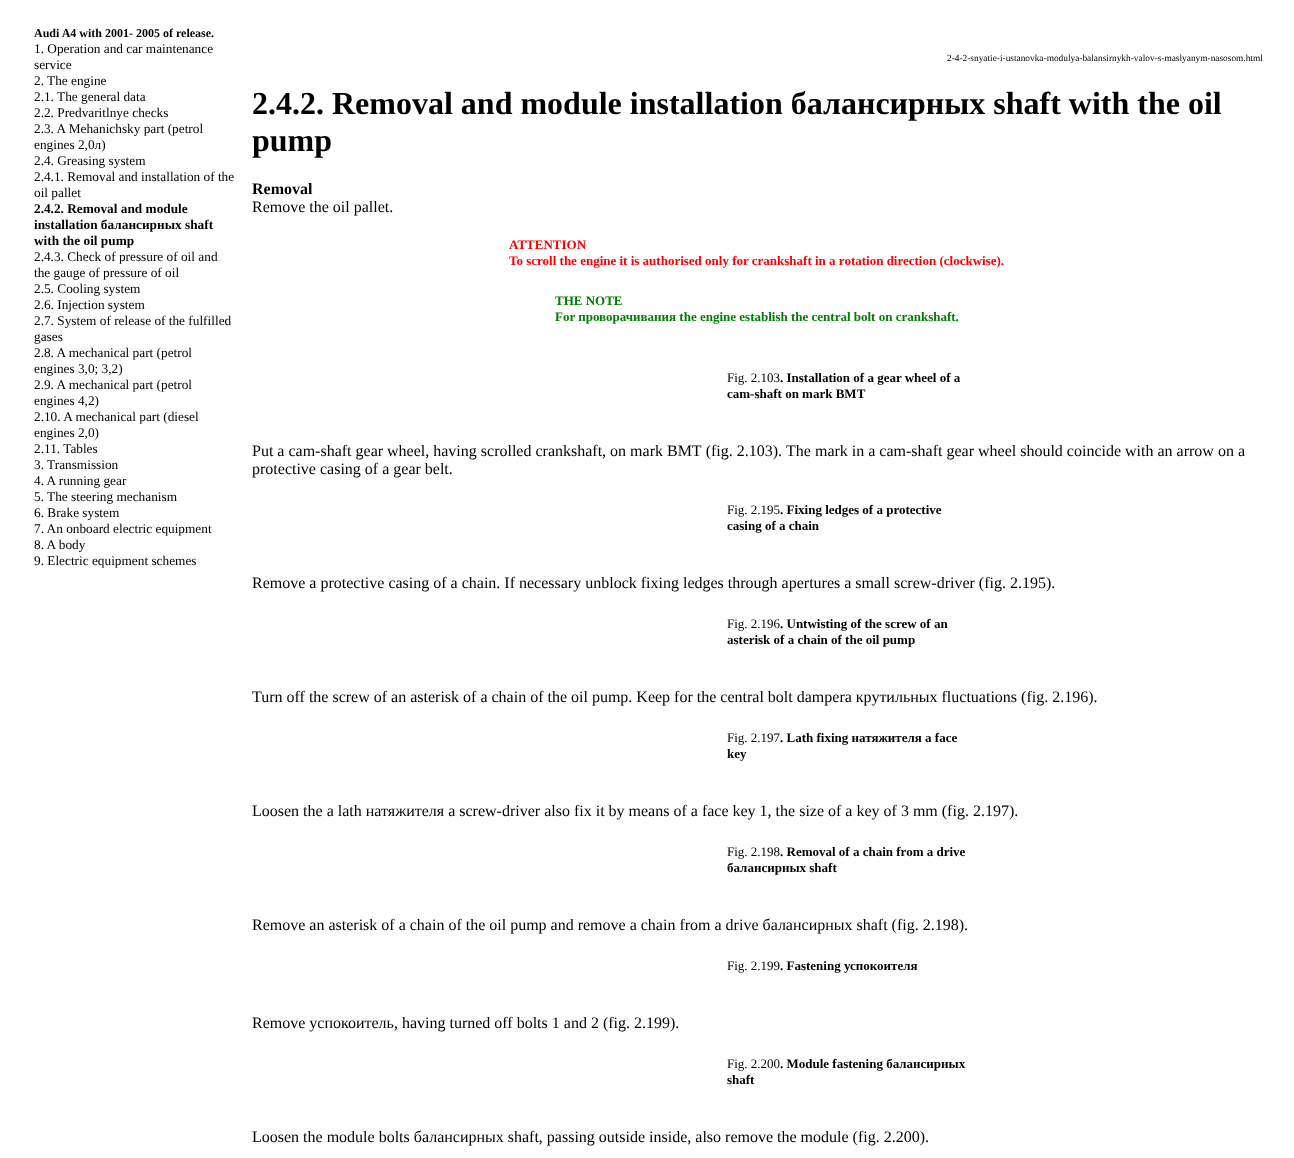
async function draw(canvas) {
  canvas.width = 1294;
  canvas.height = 1158;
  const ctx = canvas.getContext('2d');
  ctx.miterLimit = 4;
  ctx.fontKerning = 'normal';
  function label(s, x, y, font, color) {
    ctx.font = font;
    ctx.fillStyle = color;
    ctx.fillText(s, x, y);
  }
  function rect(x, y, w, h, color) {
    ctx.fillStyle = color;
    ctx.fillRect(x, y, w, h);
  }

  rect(0, 0, 1294, 1158, '#fff');
  label('Audi A4 with 2001- 2005 of release.', 34, 37, 'bold 12px Liberation Serif', '#000');
  label('1. Operation and car maintenance', 34, 53, '13.3px Liberation Serif', '#000');
  label('service', 34, 69, '13.3px Liberation Serif', '#000');
  label('2. The engine', 34, 85, '13.3px Liberation Serif', '#000');
  label('2.1. The general data', 34, 101, '13.3px Liberation Serif', '#000');
  label('2.2. Predvaritlnye checks', 34, 117, '13.3px Liberation Serif', '#000');
  label('2.3. A Mehanichsky part (petrol', 34, 133, '13.3px Liberation Serif', '#000');
  label('engines 2,0л)', 34, 149, '13.3px Liberation Serif', '#000');
  label('2.4. Greasing system', 34, 165, '13.3px Liberation Serif', '#000');
  label('2.4.1. Removal and installation of the', 34, 181, '13.3px Liberation Serif', '#000');
  label('oil pallet', 34, 197, '13.3px Liberation Serif', '#000');
  label('2.4.2. Removal and module', 34, 213, 'bold 13.3px Liberation Serif', '#000');
  label('installation балансирных shaft', 34, 229, 'bold 13.3px Liberation Serif', '#000');
  label('with the oil pump', 34, 245, 'bold 13.3px Liberation Serif', '#000');
  label('2.4.3. Check of pressure of oil and', 34, 261, '13.3px Liberation Serif', '#000');
  label('the gauge of pressure of oil', 34, 277, '13.3px Liberation Serif', '#000');
  label('2.5. Cooling system', 34, 293, '13.3px Liberation Serif', '#000');
  label('2.6. Injection system', 34, 309, '13.3px Liberation Serif', '#000');
  label('2.7. System of release of the fulfilled', 34, 325, '13.3px Liberation Serif', '#000');
  label('gases', 34, 341, '13.3px Liberation Serif', '#000');
  label('2.8. A mechanical part (petrol', 34, 357, '13.3px Liberation Serif', '#000');
  label('engines 3,0; 3,2)', 34, 373, '13.3px Liberation Serif', '#000');
  label('2.9. A mechanical part (petrol', 34, 389, '13.3px Liberation Serif', '#000');
  label('engines 4,2)', 34, 405, '13.3px Liberation Serif', '#000');
  label('2.10. A mechanical part (diesel', 34, 421, '13.3px Liberation Serif', '#000');
  label('engines 2,0)', 34, 437, '13.3px Liberation Serif', '#000');
  label('2.11. Tables', 34, 453, '13.3px Liberation Serif', '#000');
  label('3. Transmission', 34, 469, '13.3px Liberation Serif', '#000');
  label('4. A running gear', 34, 485, '13.3px Liberation Serif', '#000');
  label('5. The steering mechanism', 34, 501, '13.3px Liberation Serif', '#000');
  label('6. Brake system', 34, 517, '13.3px Liberation Serif', '#000');
  label('7. An onboard electric equipment', 34, 533, '13.3px Liberation Serif', '#000');
  label('8. A body', 34, 549, '13.3px Liberation Serif', '#000');
  label('9. Electric equipment schemes', 34, 565, '13.3px Liberation Serif', '#000');
  label('2-4-2-snyatie-i-ustanovka-modulya-balansirnykh-valov-s-maslyanym-nasosom.html', 947, 61, '9.35px Liberation Serif', '#000');
  label('2.4.2. Removal and module installation балансирных shaft with the oil', 252, 114, 'bold 32px Liberation Serif', '#000');
  label('pump', 252, 151, 'bold 32px Liberation Serif', '#000');
  label('Removal', 252, 194, 'bold 16px Liberation Serif', '#000');
  label('Remove the oil pallet.', 252, 212, '16px Liberation Serif', '#000');
  label('ATTENTION', 509, 249, 'bold 13px Liberation Serif', '#f00');
  label('To scroll the engine it is authorised only for crankshaft in a rotation direction (clockwise).', 509, 265, 'bold 13px Liberation Serif', '#f00');
  label('THE NOTE', 555, 305, 'bold 13px Liberation Serif', '#008000');
  label('For проворачивания the engine establish the central bolt on crankshaft.', 555, 321, 'bold 13px Liberation Serif', '#008000');
  label('Fig. 2.103', 727, 382, '13px Liberation Serif', '#000');
  label('. Installation of a gear wheel of a', 780, 382, 'bold 13px Liberation Serif', '#000');
  label('cam-shaft on mark ВМТ', 727, 398, 'bold 13px Liberation Serif', '#000');
  label('Put a cam-shaft gear wheel, having scrolled crankshaft, on mark ВМТ (fig. 2.103). The mark in a cam-shaft gear wheel should coincide with an arrow on a', 252, 456, '16px Liberation Serif', '#000');
  label('protective casing of a gear belt.', 252, 474, '16px Liberation Serif', '#000');
  label('Fig. 2.195', 727, 514, '13px Liberation Serif', '#000');
  label('. Fixing ledges of a protective', 780, 514, 'bold 13px Liberation Serif', '#000');
  label('casing of a chain', 727, 530, 'bold 13px Liberation Serif', '#000');
  label('Remove a protective casing of a chain. If necessary unblock fixing ledges through apertures a small screw-driver (fig. 2.195).', 252, 588, '16px Liberation Serif', '#000');
  label('Fig. 2.196', 727, 628, '13px Liberation Serif', '#000');
  label('. Untwisting of the screw of an', 780, 628, 'bold 13px Liberation Serif', '#000');
  label('asterisk of a chain of the oil pump', 727, 644, 'bold 13px Liberation Serif', '#000');
  label('Turn off the screw of an asterisk of a chain of the oil pump. Keep for the central bolt damperа крутильных fluctuations (fig. 2.196).', 252, 702, '16px Liberation Serif', '#000');
  label('Fig. 2.197', 727, 742, '13px Liberation Serif', '#000');
  label('. Lath fixing натяжителя a face', 780, 742, 'bold 13px Liberation Serif', '#000');
  label('key', 727, 758, 'bold 13px Liberation Serif', '#000');
  label('Loosen the a lath натяжителя a screw-driver also fix it by means of a face key 1, the size of a key of 3 mm (fig. 2.197).', 252, 816, '16px Liberation Serif', '#000');
  label('Fig. 2.198', 727, 856, '13px Liberation Serif', '#000');
  label('. Removal of a chain from a drive', 780, 856, 'bold 13px Liberation Serif', '#000');
  label('балансирных shaft', 727, 872, 'bold 13px Liberation Serif', '#000');
  label('Remove an asterisk of a chain of the oil pump and remove a chain from a drive балансирных shaft (fig. 2.198).', 252, 930, '16px Liberation Serif', '#000');
  label('Fig. 2.199', 727, 970, '13px Liberation Serif', '#000');
  label('. Fastening успокоителя', 780, 970, 'bold 13px Liberation Serif', '#000');
  label('Remove успокоитель, having turned off bolts 1 and 2 (fig. 2.199).', 252, 1028, '16px Liberation Serif', '#000');
  label('Fig. 2.200', 727, 1068, '13px Liberation Serif', '#000');
  label('. Module fastening балансирных', 780, 1068, 'bold 13px Liberation Serif', '#000');
  label('shaft', 727, 1084, 'bold 13px Liberation Serif', '#000');
  label('Loosen the module bolts балансирных shaft, passing outside inside, also remove the module (fig. 2.200).', 252, 1142, '16px Liberation Serif', '#000');
}

draw(document.querySelector('canvas'));
